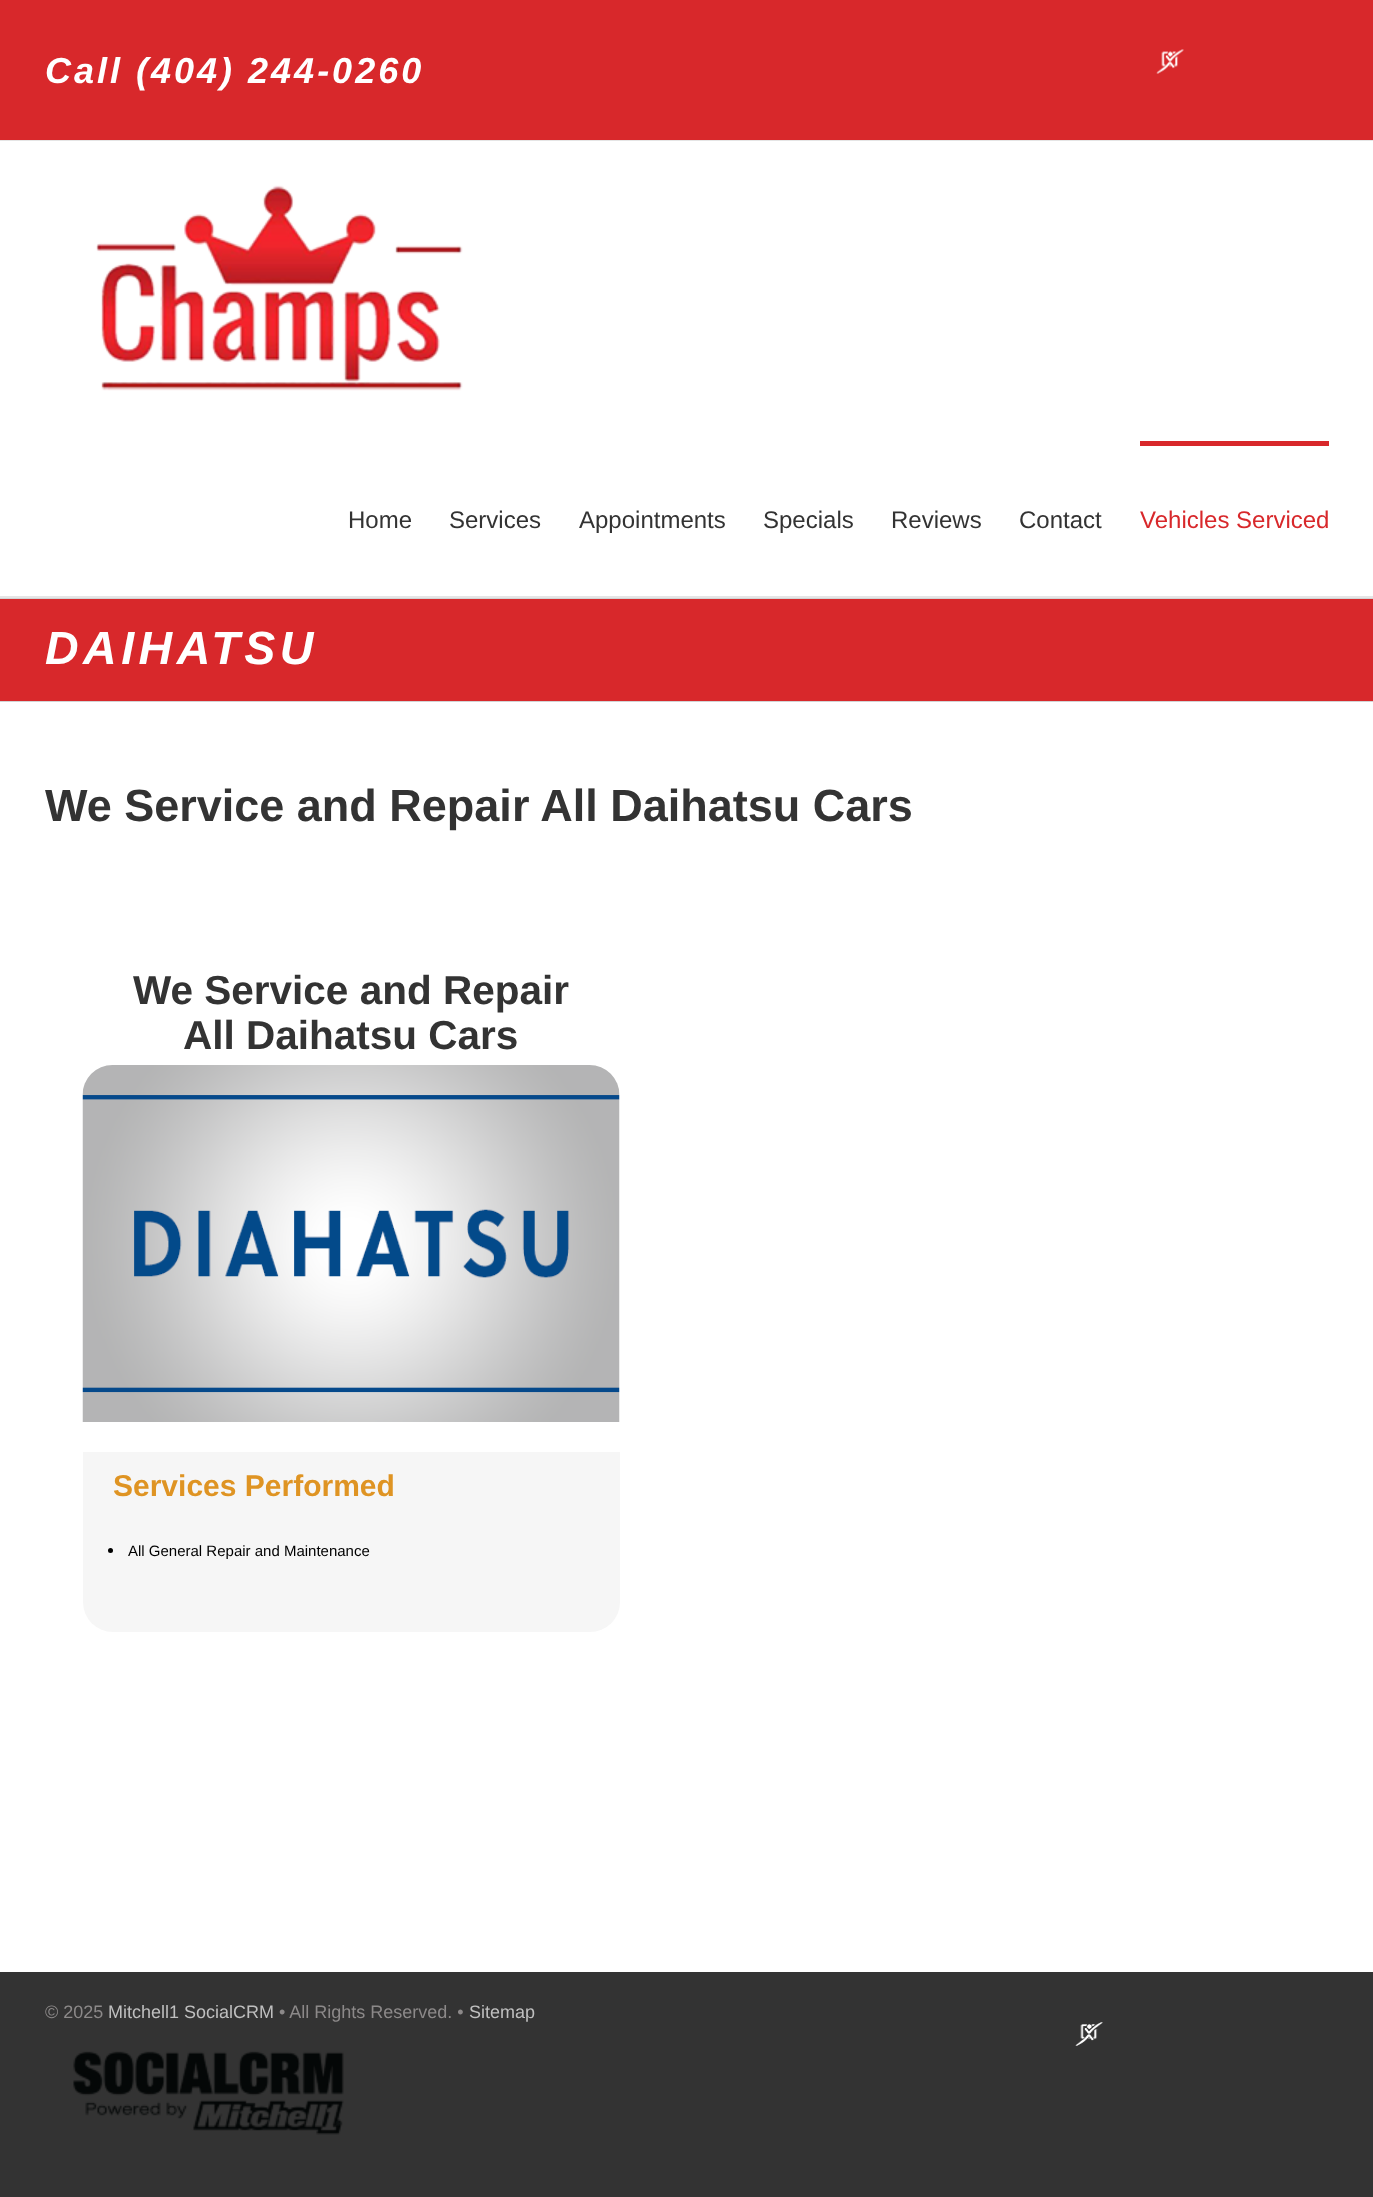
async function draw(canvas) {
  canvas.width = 1373;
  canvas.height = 2197;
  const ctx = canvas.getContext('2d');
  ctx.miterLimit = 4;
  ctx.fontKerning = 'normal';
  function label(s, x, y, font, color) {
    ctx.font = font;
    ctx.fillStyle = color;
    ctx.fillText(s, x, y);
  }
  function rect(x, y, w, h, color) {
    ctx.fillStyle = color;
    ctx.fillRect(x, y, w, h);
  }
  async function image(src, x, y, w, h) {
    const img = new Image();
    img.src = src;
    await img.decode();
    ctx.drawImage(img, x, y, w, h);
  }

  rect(0, 0, 1373, 2197, '#d8282b');
  rect(0, 140, 1373, 1, '#e5e5e5');
  ctx.letterSpacing = '3px';
  label('Call (404) 244-0260', 45, 83, 'italic bold 36px Liberation Sans', '#fff');
  await image('assets/img1.png', 1156, 49, 28, 25);
  rect(0, 141, 1373, 455, '#fff');
  rect(0, 596, 1373, 2, '#e5e5e5');
  await image('assets/img2.png', 96, 185, 367, 206);
  ctx.letterSpacing = '0px';
  label('Home', 348, 528, '24px Liberation Sans', '#333');
  label('Services', 449, 528, '24px Liberation Sans', '#333');
  label('Appointments', 579, 528, '24px Liberation Sans', '#333');
  label('Specials', 763, 528, '24px Liberation Sans', '#333');
  label('Reviews', 891, 528, '24px Liberation Sans', '#333');
  label('Contact', 1019, 528, '24px Liberation Sans', '#333');
  rect(1140, 441, 189, 5, '#d8282b');
  label('Vehicles Serviced', 1140, 528, '24px Liberation Sans', '#d8282b');
  rect(0, 598, 1373, 1, '#d2d3d4');
  rect(0, 701, 1373, 1, '#d2d3d4');
  ctx.letterSpacing = '4.5px';
  label('DAIHATSU', 45, 664, 'italic bold 46.5px Liberation Sans', '#fff');
  rect(0, 702, 1373, 1270, '#fff');
  ctx.letterSpacing = '0px';
  label('We Service and Repair All Daihatsu Cars', 45, 821, 'bold 45px Liberation Sans', '#333');
  label('We Service and Repair', 133, 1004, 'bold 40.5px Liberation Sans', '#333');
  label('All Daihatsu Cars', 183, 1049, 'bold 40.5px Liberation Sans', '#333');
  await image('assets/img3.png', 82, 1065, 538, 357);
  ctx.fillStyle = '#f6f6f6';
  ctx.beginPath();
  ctx.roundRect(83, 1452, 537, 180, [0, 0, 30, 30]);
  ctx.fill();
  label('Services Performed', 113, 1496, 'bold 30px Liberation Sans', '#df9423');
  ctx.fillStyle = '#000';
  ctx.beginPath();
  ctx.arc(110.5, 1550.5, 2.5, 0, 2 * Math.PI);
  ctx.fill();
  label('All General Repair and Maintenance', 128, 1556, '15px Liberation Sans', '#000');
  rect(0, 1972, 1373, 225, '#333');
  label('© 2025', 45, 2018, '18px Liberation Sans', '#8c8989');
  label('Mitchell1 SocialCRM', 108, 2018, '18px Liberation Sans', '#bfbfbf');
  label('• All Rights Reserved. •', 279, 2018, '18px Liberation Sans', '#8c8989');
  label('Sitemap', 469, 2018, '18px Liberation Sans', '#bfbfbf');
  await image('assets/img4.png', 73, 2051, 271, 84);
  await image('assets/img5.png', 1075, 2022, 28, 24);
}

draw(document.querySelector('canvas'));
